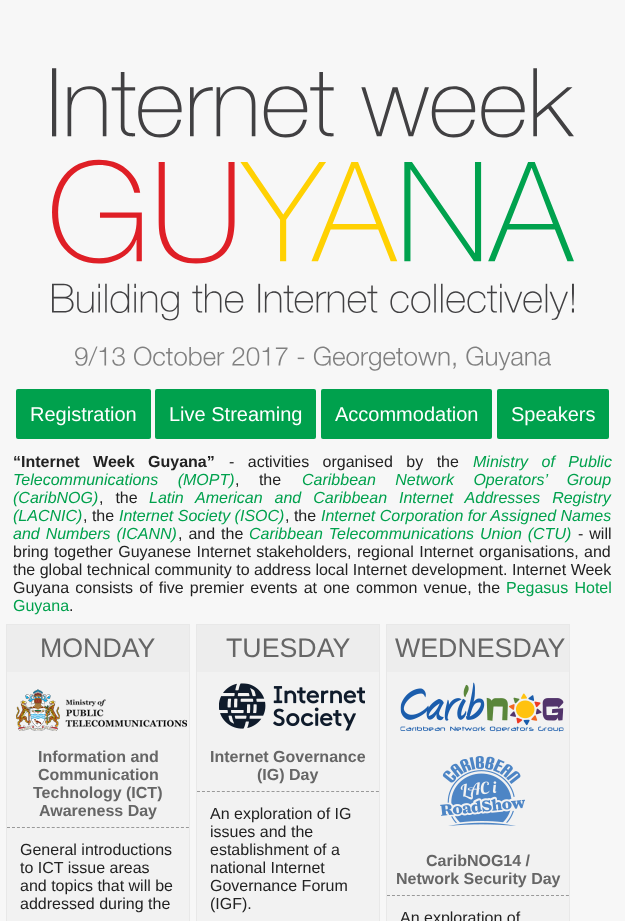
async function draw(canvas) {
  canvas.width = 625;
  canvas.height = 921;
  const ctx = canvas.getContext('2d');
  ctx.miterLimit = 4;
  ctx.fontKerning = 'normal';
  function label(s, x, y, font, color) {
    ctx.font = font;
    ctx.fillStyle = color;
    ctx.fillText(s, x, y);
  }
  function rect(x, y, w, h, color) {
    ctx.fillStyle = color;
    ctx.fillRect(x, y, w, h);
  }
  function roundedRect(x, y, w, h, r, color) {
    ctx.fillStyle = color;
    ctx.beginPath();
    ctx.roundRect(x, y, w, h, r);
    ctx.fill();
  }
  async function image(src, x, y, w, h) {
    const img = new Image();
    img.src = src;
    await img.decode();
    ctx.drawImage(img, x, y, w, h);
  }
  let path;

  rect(0, 0, 625, 921, '#f7f7f7');
  await image('assets/img1.png', 52, 68, 522, 303);
  roundedRect(16, 389, 135, 50, 2, '#00a14d');
  label('Registration', 30, 421, '20px Liberation Sans', '#fff');
  roundedRect(155, 389, 161, 50, 2, '#00a14d');
  label('Live Streaming', 169, 421, '20px Liberation Sans', '#fff');
  roundedRect(321, 389, 171, 50, 2, '#00a14d');
  label('Accommodation', 335, 421, '20px Liberation Sans', '#fff');
  roundedRect(497, 389, 112, 50, 2, '#00a14d');
  label('Speakers', 511, 421, '20px Liberation Sans', '#fff');
  ctx.wordSpacing = '9px';
  label('“Internet Week Guyana”', 13, 467, 'bold 16px Liberation Sans', '#222');
  label('- activities organised by the', 229, 467, '16px Liberation Sans', '#222');
  label('Ministry of Public', 473, 467, 'italic 16px Liberation Sans', '#00a14d');
  ctx.wordSpacing = '15px';
  label('Telecommunications (MOPT)', 13, 485, 'italic 16px Liberation Sans', '#00a14d');
  label(', the', 235, 485, '16px Liberation Sans', '#222');
  label('Caribbean Network Operators’ Group', 302, 485, 'italic 16px Liberation Sans', '#00a14d');
  ctx.wordSpacing = '0px';
  label('(CaribNOG)', 13, 503, 'italic 16px Liberation Sans', '#00a14d');
  ctx.wordSpacing = '7.5px';
  label(', the', 99, 503, '16px Liberation Sans', '#222');
  label('Latin American and Caribbean Internet Addresses Registry', 149, 503, 'italic 16px Liberation Sans', '#00a14d');
  ctx.wordSpacing = '0px';
  label('(LACNIC)', 13, 521, 'italic 16px Liberation Sans', '#00a14d');
  label(', the', 83, 521, '16px Liberation Sans', '#222');
  label('Internet Society (ISOC)', 119, 521, 'italic 16px Liberation Sans', '#00a14d');
  label(', the', 285, 521, '16px Liberation Sans', '#222');
  label('Internet Corporation for Assigned Names', 321, 521, 'italic 16px Liberation Sans', '#00a14d');
  ctx.wordSpacing = '1.5px';
  label('and Numbers (ICANN)', 13, 539, 'italic 16px Liberation Sans', '#00a14d');
  label(', and the', 178, 539, '16px Liberation Sans', '#222');
  label('Caribbean Telecommunications Union (CTU)', 249, 539, 'italic 16px Liberation Sans', '#00a14d');
  label('- will', 578, 539, '16px Liberation Sans', '#222');
  ctx.wordSpacing = '1px';
  label('bring together Guyanese Internet stakeholders, regional Internet organisations, and', 13, 557, '16px Liberation Sans', '#222');
  ctx.wordSpacing = '0px';
  label('the global technical community to address local Internet development. Internet Week', 13, 575, '16px Liberation Sans', '#222');
  ctx.wordSpacing = '1.75px';
  label('Guyana consists of five premier events at one common venue, the', 13, 593, '16px Liberation Sans', '#222');
  label('Pegasus Hotel', 506, 593, '16px Liberation Sans', '#00a14d');
  ctx.wordSpacing = '0px';
  label('Guyana', 13, 611, '16px Liberation Sans', '#00a14d');
  label('.', 69, 611, '16px Liberation Sans', '#222');
  rect(7, 672, 182, 249, '#f2f2f2');
  ctx.strokeStyle = '#e8e8e8';
  ctx.strokeRect(6.5, 624.5, 183, 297);
  rect(7, 625, 182, 47, '#ededed');
  label('MONDAY', 40, 657, '26.75px Liberation Sans', '#666');
  await image('assets/img2.png', 16, 689, 171, 42);
  path = new Path2D('M7 827.5H189');
  ctx.strokeStyle = '#999';
  ctx.setLineDash([3, 1.97]);
  ctx.stroke(path);
  label('Information and', 38, 762, 'bold 16px Liberation Sans', '#666');
  label('Communication', 38, 780, 'bold 16px Liberation Sans', '#666');
  label('Technology (ICT)', 33, 798, 'bold 16px Liberation Sans', '#666');
  label('Awareness Day', 39, 816, 'bold 16px Liberation Sans', '#666');
  label('General introductions', 20, 855, '16px Liberation Sans', '#222');
  label('to ICT issue areas', 20, 873, '16px Liberation Sans', '#222');
  label('and topics that will be', 20, 891, '16px Liberation Sans', '#222');
  label('addressed during the', 20, 909, '16px Liberation Sans', '#222');
  rect(197, 672, 182, 249, '#f2f2f2');
  ctx.strokeStyle = '#e8e8e8';
  ctx.setLineDash([]);
  ctx.strokeRect(196.5, 624.5, 183, 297);
  rect(197, 625, 182, 47, '#ededed');
  label('TUESDAY', 226, 657, '26.75px Liberation Sans', '#666');
  await image('assets/img3.png', 219, 683, 146, 48);
  path = new Path2D('M197 791.5H379');
  ctx.strokeStyle = '#999';
  ctx.setLineDash([3, 1.97]);
  ctx.stroke(path);
  label('Internet Governance', 210, 762, 'bold 16px Liberation Sans', '#666');
  label('(IG) Day', 257, 780, 'bold 16px Liberation Sans', '#666');
  label('An exploration of IG', 210, 819, '16px Liberation Sans', '#222');
  label('issues and the', 210, 837, '16px Liberation Sans', '#222');
  label('establishment of a', 210, 855, '16px Liberation Sans', '#222');
  label('national Internet', 210, 873, '16px Liberation Sans', '#222');
  label('Governance Forum', 210, 891, '16px Liberation Sans', '#222');
  label('(IGF).', 210, 909, '16px Liberation Sans', '#222');
  rect(387, 672, 182, 249, '#f2f2f2');
  ctx.strokeStyle = '#e8e8e8';
  ctx.setLineDash([]);
  ctx.strokeRect(386.5, 624.5, 183, 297);
  rect(387, 625, 182, 47, '#ededed');
  label('WEDNESDAY', 395, 657, '26.75px Liberation Sans', '#666');
  await image('assets/img4.png', 400, 682, 164, 50);
  await image('assets/img5.png', 440, 756, 85, 70);
  path = new Path2D('M387 895.5H569');
  ctx.strokeStyle = '#999';
  ctx.setLineDash([3, 1.97]);
  ctx.stroke(path);
  label('CaribNOG14 /', 426, 866, 'bold 16px Liberation Sans', '#666');
  label('Network Security Day', 396, 884, 'bold 16px Liberation Sans', '#666');
  label('An exploration of', 400, 923, '16px Liberation Sans', '#222');
}

draw(document.querySelector('canvas'));
